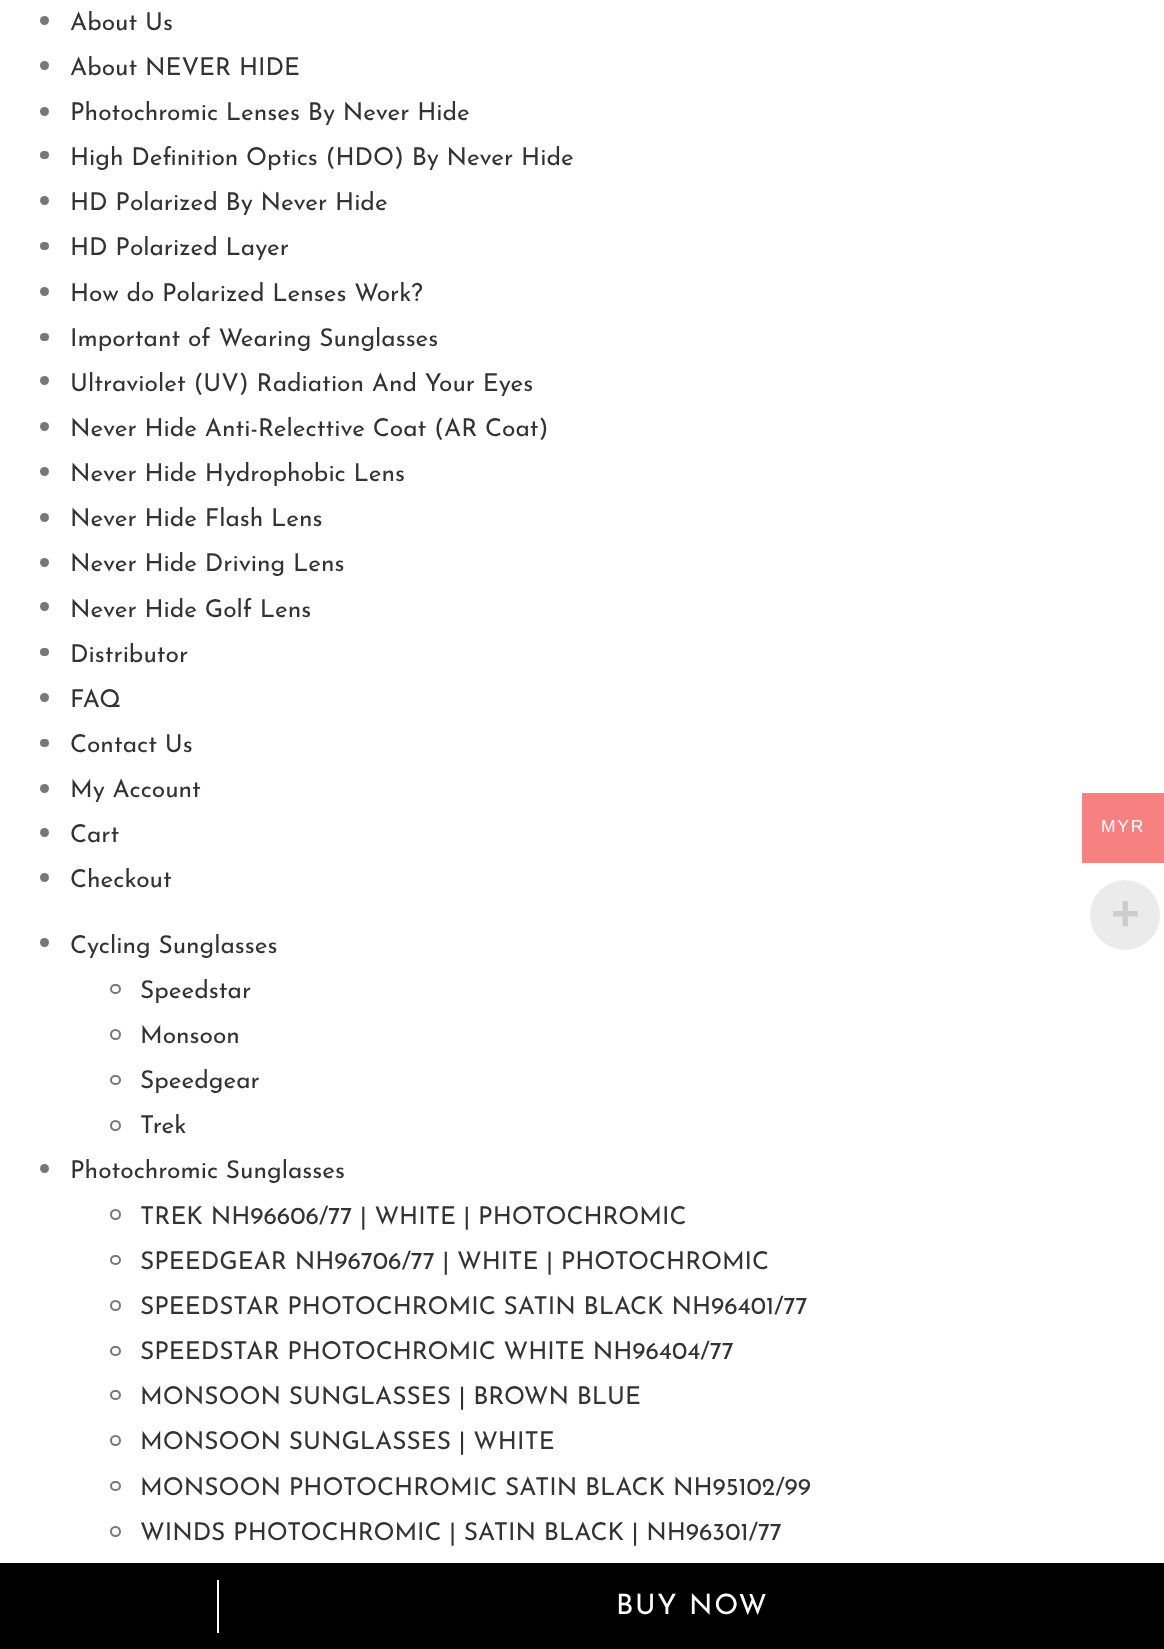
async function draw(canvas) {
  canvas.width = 1164;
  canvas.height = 1649;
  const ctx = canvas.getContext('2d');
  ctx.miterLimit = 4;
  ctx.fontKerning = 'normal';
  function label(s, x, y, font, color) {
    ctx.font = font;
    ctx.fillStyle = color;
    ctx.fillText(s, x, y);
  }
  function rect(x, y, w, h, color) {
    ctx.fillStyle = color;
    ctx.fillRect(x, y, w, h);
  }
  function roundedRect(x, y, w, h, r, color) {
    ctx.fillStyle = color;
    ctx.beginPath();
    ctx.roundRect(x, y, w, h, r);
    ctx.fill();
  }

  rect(0, 0, 1164, 1649, '#fff');
  ctx.fillStyle = '#777';
  ctx.beginPath();
  ctx.arc(44.5, 20.5, 4.5, 0, 2 * Math.PI);
  ctx.fill();
  label('About Us', 70, 30, '24.5px Josefin Sans', '#333');
  ctx.fillStyle = '#777';
  ctx.beginPath();
  ctx.arc(44.5, 65.5, 4.5, 0, 2 * Math.PI);
  ctx.fill();
  label('About NEVER HIDE', 70, 75, '24.5px Josefin Sans', '#333');
  ctx.fillStyle = '#777';
  ctx.beginPath();
  ctx.arc(44.5, 111.5, 4.5, 0, 2 * Math.PI);
  ctx.fill();
  label('Photochromic Lenses By Never Hide', 70, 120, '24.5px Josefin Sans', '#333');
  roundedRect(40, 151, 9, 8, 4, '#777');
  label('High Definition Optics (HDO) By Never Hide', 70, 165, '24.5px Josefin Sans', '#333');
  ctx.fillStyle = '#777';
  ctx.beginPath();
  ctx.arc(44.5, 200.5, 4.5, 0, 2 * Math.PI);
  ctx.fill();
  label('HD Polarized By Never Hide', 70, 210, '24.5px Josefin Sans', '#333');
  roundedRect(40, 242, 9, 8, 4, '#777');
  label('HD Polarized Layer', 70, 255, '24.5px Josefin Sans', '#333');
  ctx.fillStyle = '#777';
  ctx.beginPath();
  ctx.arc(44.5, 291.5, 4.5, 0, 2 * Math.PI);
  ctx.fill();
  label('How do Polarized Lenses Work?', 70, 301, '24.5px Josefin Sans', '#333');
  roundedRect(40, 333, 9, 8, 4, '#777');
  label('Important of Wearing Sunglasses', 70, 346, '24.5px Josefin Sans', '#333');
  ctx.fillStyle = '#777';
  ctx.beginPath();
  ctx.arc(44.5, 380.5, 4.5, 0, 2 * Math.PI);
  ctx.fill();
  label('Ultraviolet (UV) Radiation And Your Eyes', 70, 391, '24.5px Josefin Sans', '#333');
  ctx.fillStyle = '#777';
  ctx.beginPath();
  ctx.arc(44.5, 426.5, 4.5, 0, 2 * Math.PI);
  ctx.fill();
  label('Never Hide Anti-Relecttive Coat (AR Coat)', 70, 436, '24.5px Josefin Sans', '#333');
  ctx.fillStyle = '#777';
  ctx.beginPath();
  ctx.arc(44.5, 471.5, 4.5, 0, 2 * Math.PI);
  ctx.fill();
  label('Never Hide Hydrophobic Lens', 70, 481, '24.5px Josefin Sans', '#333');
  ctx.fillStyle = '#777';
  ctx.beginPath();
  ctx.arc(44.5, 517.5, 4.5, 0, 2 * Math.PI);
  ctx.fill();
  label('Never Hide Flash Lens', 70, 526, '24.5px Josefin Sans', '#333');
  ctx.fillStyle = '#777';
  ctx.beginPath();
  ctx.arc(44.5, 562.5, 4.5, 0, 2 * Math.PI);
  ctx.fill();
  label('Never Hide Driving Lens', 70, 571, '24.5px Josefin Sans', '#333');
  ctx.fillStyle = '#777';
  ctx.beginPath();
  ctx.arc(44.5, 606.5, 4.5, 0, 2 * Math.PI);
  ctx.fill();
  label('Never Hide Golf Lens', 70, 617, '24.5px Josefin Sans', '#333');
  roundedRect(40, 648, 9, 8, 4, '#777');
  label('Distributor', 70, 662, '24.5px Josefin Sans', '#333');
  ctx.fillStyle = '#777';
  ctx.beginPath();
  ctx.arc(44.5, 697.5, 4.5, 0, 2 * Math.PI);
  ctx.fill();
  label('FAQ', 70, 707, '24.5px Josefin Sans', '#333');
  roundedRect(40, 739, 9, 8, 4, '#777');
  label('Contact Us', 70, 752, '24.5px Josefin Sans', '#333');
  ctx.fillStyle = '#777';
  ctx.beginPath();
  ctx.arc(44.5, 788.5, 4.5, 0, 2 * Math.PI);
  ctx.fill();
  label('My Account', 70, 797, '24.5px Josefin Sans', '#333');
  ctx.fillStyle = '#777';
  ctx.beginPath();
  ctx.arc(44.5, 832.5, 4.5, 0, 2 * Math.PI);
  ctx.fill();
  label('Cart', 70, 842, '24.5px Josefin Sans', '#333');
  ctx.fillStyle = '#777';
  ctx.beginPath();
  ctx.arc(44.5, 877.5, 4.5, 0, 2 * Math.PI);
  ctx.fill();
  label('Checkout', 70, 887, '24.5px Josefin Sans', '#333');
  ctx.fillStyle = '#777';
  ctx.beginPath();
  ctx.arc(44.5, 942.5, 4.5, 0, 2 * Math.PI);
  ctx.fill();
  label('Cycling Sunglasses', 70, 953, '24.5px Josefin Sans', '#333');
  ctx.beginPath();
  ctx.roundRect(111, 985, 9, 8, 4);
  ctx.strokeStyle = '#777';
  ctx.lineWidth = 2;
  ctx.stroke();
  label('Speedstar', 140, 998, '24.5px Josefin Sans', '#333');
  ctx.beginPath();
  ctx.arc(115.5, 1034.5, 4.5, 0, 2 * Math.PI);
  ctx.stroke();
  label('Monsoon', 140, 1043, '24.5px Josefin Sans', '#333');
  ctx.beginPath();
  ctx.roundRect(111, 1076, 9, 8, 4);
  ctx.stroke();
  label('Speedgear', 140, 1088, '24.5px Josefin Sans', '#333');
  ctx.beginPath();
  ctx.arc(115.5, 1125.5, 4.5, 0, 2 * Math.PI);
  ctx.stroke();
  label('Trek', 140, 1133, '24.5px Josefin Sans', '#333');
  ctx.fillStyle = '#777';
  ctx.beginPath();
  ctx.arc(44.5, 1168.5, 4.5, 0, 2 * Math.PI);
  ctx.fill();
  label('Photochromic Sunglasses', 70, 1178, '24.5px Josefin Sans', '#333');
  ctx.beginPath();
  ctx.arc(115.5, 1214.5, 4.5, 0, 2 * Math.PI);
  ctx.stroke();
  label('TREK NH96606/77 | WHITE | PHOTOCHROMIC', 140, 1224, '24.5px Josefin Sans', '#333');
  ctx.beginPath();
  ctx.roundRect(111, 1256, 9, 8, 4);
  ctx.stroke();
  label('SPEEDGEAR NH96706/77 | WHITE | PHOTOCHROMIC', 140, 1269, '24.5px Josefin Sans', '#333');
  ctx.beginPath();
  ctx.arc(115.5, 1305.5, 4.5, 0, 2 * Math.PI);
  ctx.stroke();
  label('SPEEDSTAR PHOTOCHROMIC SATIN BLACK NH96401/77', 140, 1314, '24.5px Josefin Sans', '#333');
  ctx.beginPath();
  ctx.roundRect(111, 1347, 9, 8, 4);
  ctx.stroke();
  label('SPEEDSTAR PHOTOCHROMIC WHITE NH96404/77', 140, 1359, '24.5px Josefin Sans', '#333');
  ctx.beginPath();
  ctx.roundRect(111, 1391, 9, 8, 4);
  ctx.stroke();
  label('MONSOON SUNGLASSES | BROWN BLUE', 140, 1404, '24.5px Josefin Sans', '#333');
  ctx.beginPath();
  ctx.arc(115.5, 1440.5, 4.5, 0, 2 * Math.PI);
  ctx.stroke();
  label('MONSOON SUNGLASSES | WHITE', 140, 1449, '24.5px Josefin Sans', '#333');
  ctx.beginPath();
  ctx.roundRect(111, 1482, 9, 8, 4);
  ctx.stroke();
  label('MONSOON PHOTOCHROMIC SATIN BLACK NH95102/99', 140, 1495, '24.5px Josefin Sans', '#333');
  ctx.beginPath();
  ctx.arc(115.5, 1531.5, 4.5, 0, 2 * Math.PI);
  ctx.stroke();
  label('WINDS PHOTOCHROMIC | SATIN BLACK | NH96301/77', 140, 1540, '24.5px Josefin Sans', '#333');
  rect(0, 1563, 1164, 86, '#000');
  rect(217, 1580, 2, 53, '#fff');
  ctx.letterSpacing = '1.75px';
  label('BUY NOW', 616, 1614, '28px Josefin Sans', '#fff');
  rect(1082, 793, 82, 70, '#f78080');
  label('MYR', 1101, 832, '17.5px Liberation Sans', '#fff');
  ctx.fillStyle = '#ebebeb';
  ctx.beginPath();
  ctx.arc(1125, 915, 35, 0, 2 * Math.PI);
  ctx.fill();
  ctx.letterSpacing = '0px';
  label('+', 1111, 930, 'bold 49px Liberation Sans', '#ccc');
}

draw(document.querySelector('canvas'));
